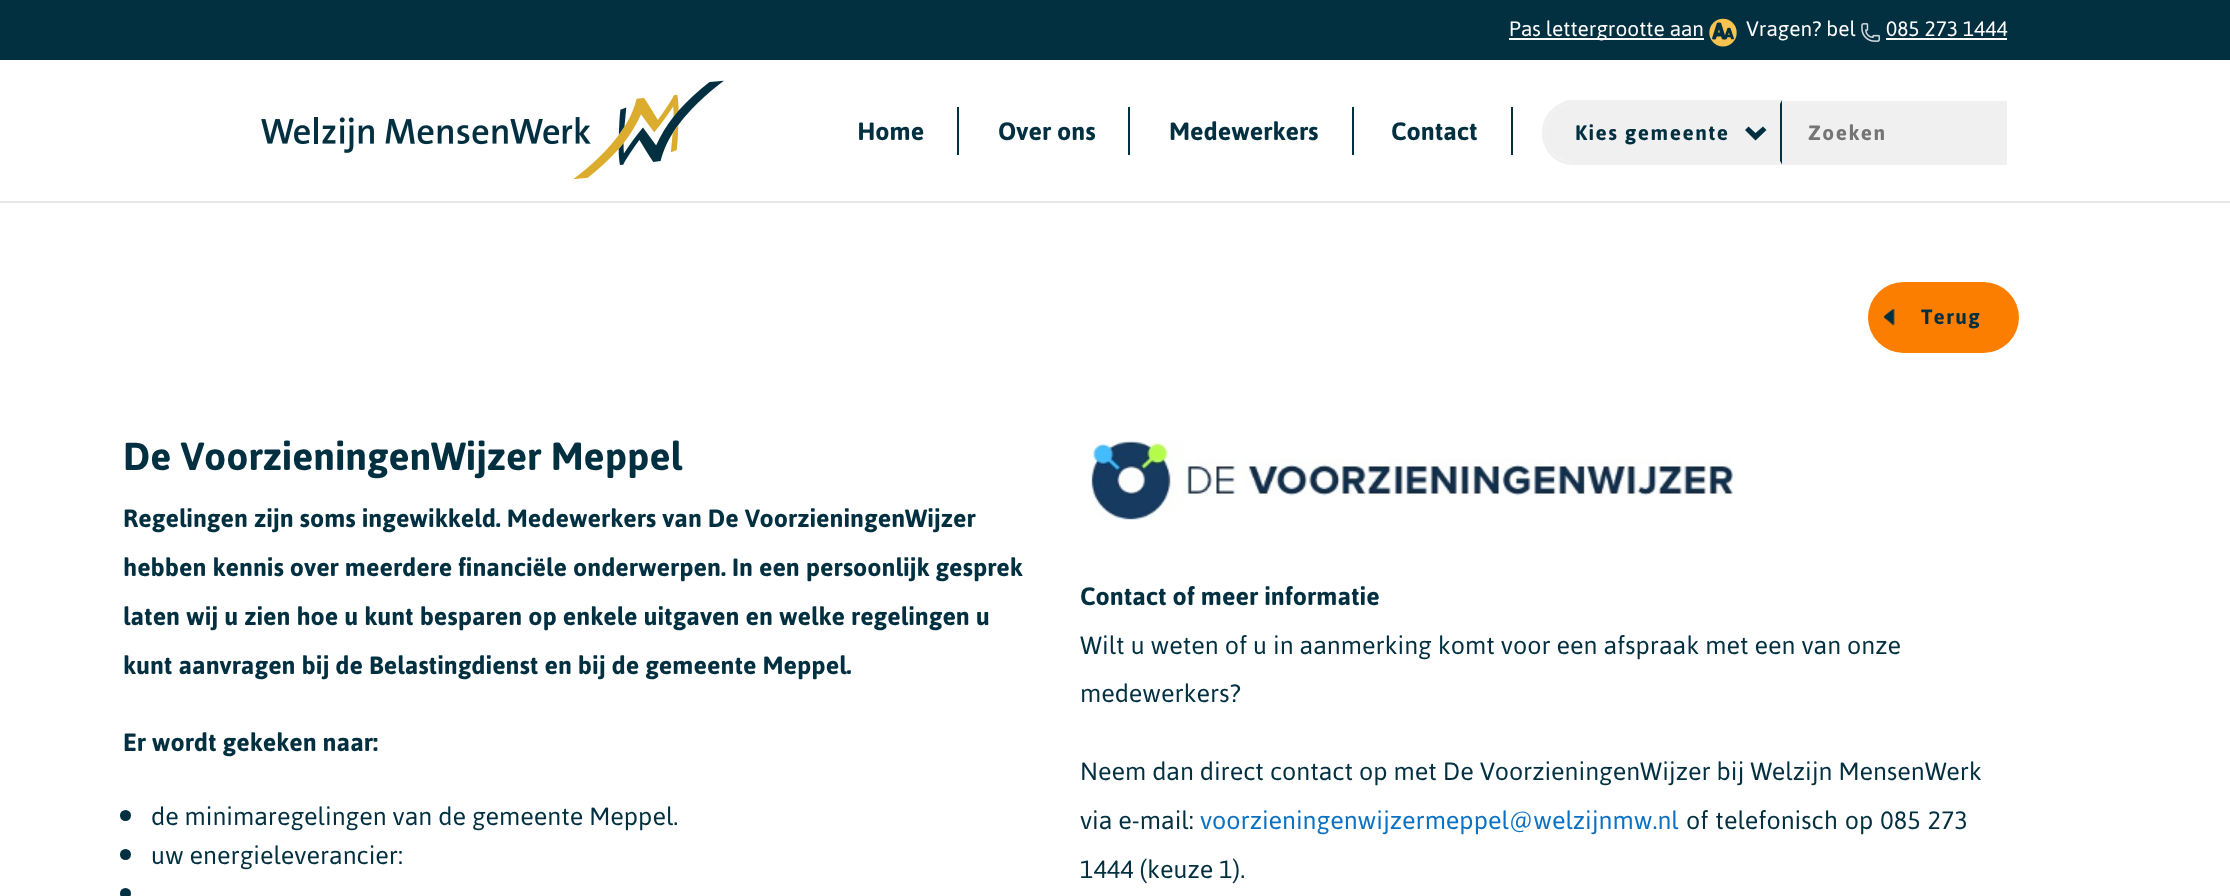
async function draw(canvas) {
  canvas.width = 2230;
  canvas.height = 896;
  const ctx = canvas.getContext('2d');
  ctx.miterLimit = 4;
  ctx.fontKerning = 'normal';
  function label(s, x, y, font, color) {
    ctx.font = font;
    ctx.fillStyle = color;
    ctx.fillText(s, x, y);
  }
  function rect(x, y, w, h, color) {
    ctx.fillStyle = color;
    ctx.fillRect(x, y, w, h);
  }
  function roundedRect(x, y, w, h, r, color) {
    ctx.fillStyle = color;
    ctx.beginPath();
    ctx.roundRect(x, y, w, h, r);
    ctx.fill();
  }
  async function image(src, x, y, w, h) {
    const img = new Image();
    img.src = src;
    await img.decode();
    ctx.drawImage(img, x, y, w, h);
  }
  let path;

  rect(0, 0, 2230, 896, '#fff');
  rect(0, 0, 2230, 60, '#023040');
  rect(1509, 38, 195, 2, '#fff');
  label('Pas lettergrootte aan', 1509, 36, '24px Jaldi', '#fff');
  await image('assets/img1.png', 1709, 18, 28, 29);
  label('Vragen? bel', 1746, 36, '24px Jaldi', '#fff');
  await image('assets/img2.png', 1861, 23, 20, 19);
  label('085 273 1444', 1886, 36, '24px Jaldi', '#fff');
  rect(1886, 38, 121, 2, '#fff');
  ctx.fillStyle = '#e6e6e6';
  path = new Path2D('M0 201V203H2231V62H2230V201Z');
  ctx.fill(path);
  await image('assets/img3.png', 261, 80, 463, 100);
  label('Home', 857, 140, 'bold 28.8px Jaldi', '#023040');
  rect(957, 107, 2, 48, '#023040');
  label('Over ons', 998, 140, 'bold 28.8px Jaldi', '#023040');
  rect(1128, 107, 2, 48, '#023040');
  label('Medewerkers', 1169, 140, 'bold 28.8px Jaldi', '#023040');
  rect(1352, 107, 2, 48, '#023040');
  label('Contact', 1391, 140, 'bold 28.8px Jaldi', '#023040');
  rect(1511, 107, 2, 48, '#023040');
  ctx.fillStyle = '#f0f0f0';
  ctx.beginPath();
  ctx.roundRect(1545, 104, 236, 58, [29, 0, 0, 29]);
  ctx.fill();
  path = new Path2D('M1574 104C1566 104 1559 107 1554 112L1551 110C1556 105 1562 102 1568 100H1782L1780 104Z');
  ctx.fill(path);
  ctx.fillStyle = '#023040';
  path = new Path2D('M1782 100L1780 104V161L1782 165Z');
  ctx.fill(path);
  ctx.fillStyle = '#f0f0f0';
  path = new Path2D('M1782 165L1780 161V162H1574C1566 162 1559 159 1554 154L1551 156C1557 162 1565 165 1574 165Z');
  ctx.fill(path);
  path = new Path2D('M1551 156C1539 143 1539 122 1551 110L1554 112C1542 123 1542 142 1554 154Z');
  ctx.fill(path);
  ctx.letterSpacing = '1.5px';
  label('Kies gemeente', 1575, 140, 'bold 24px Jaldi', '#023040');
  path = new Path2D('M1763 126.5L1766.5 130L1755.5 140.5L1745 130L1748.5 126.5L1755.5 133Z');
  ctx.fill(path);
  rect(1782, 101, 225, 64, '#f0f0f0');
  label('Zoeken', 1808, 140, 'bold 24px Jaldi', '#757575');
  roundedRect(1868, 282, 151, 71, 35.5, '#fc7e00');
  await image('assets/img4.png', 1884, 309, 11, 17);
  label('Terug', 1921, 324, 'bold 24px Jaldi', '#023040');
  ctx.letterSpacing = '0px';
  label('De VoorzieningenWijzer Meppel', 123, 470, 'bold 45px Jaldi', '#023040');
  label('Regelingen zijn soms ingewikkeld. Medewerkers van De VoorzieningenWijzer', 123, 527, 'bold 28.8px Jaldi', '#023040');
  label('hebben kennis over meerdere financiële onderwerpen. In een persoonlijk gesprek', 123, 576, 'bold 28.8px Jaldi', '#023040');
  label('laten wij u zien hoe u kunt besparen op enkele uitgaven en welke regelingen u', 123, 625, 'bold 28.8px Jaldi', '#023040');
  label('kunt aanvragen bij de Belastingdienst en bij de gemeente Meppel.', 123, 674, 'bold 28.8px Jaldi', '#023040');
  label('Er wordt gekeken naar:', 123, 751, 'bold 28.8px Jaldi', '#023040');
  ctx.beginPath();
  ctx.arc(125.5, 815.5, 5.5, 0, 2 * Math.PI);
  ctx.fill();
  label('de minimaregelingen van de gemeente Meppel.', 151, 825, '28.8px Jaldi', '#023040');
  ctx.beginPath();
  ctx.arc(125.5, 854.5, 5.5, 0, 2 * Math.PI);
  ctx.fill();
  label('uw energieleverancier:', 151, 864, '28.8px Jaldi', '#023040');
  ctx.beginPath();
  ctx.arc(125.5, 893.5, 5.5, 0, 2 * Math.PI);
  ctx.fill();
  await image('assets/img5.png', 1091, 440, 642, 80);
  label('Contact of meer informatie', 1080, 605, 'bold 28.8px Jaldi', '#023040');
  label('Wilt u weten of u in aanmerking komt voor een afspraak met een van onze', 1080, 654, '28.8px Jaldi', '#023040');
  label('medewerkers?', 1080, 702, '28.8px Jaldi', '#023040');
  label('Neem dan direct contact op met De VoorzieningenWijzer bij Welzijn MensenWerk', 1080, 780, '28.8px Jaldi', '#023040');
  label('via e-mail:', 1080, 829, '28.8px Jaldi', '#023040');
  label('voorzieningenwijzermeppel@welzijnmw.nl', 1200, 829, '28.8px Jaldi', '#0c71c3');
  ctx.wordSpacing = '1px';
  label('of telefonisch op 085 273', 1686, 829, '28.8px Jaldi', '#023040');
  ctx.wordSpacing = '0px';
  label('1444 (keuze 1).', 1080, 878, '28.8px Jaldi', '#023040');
}

draw(document.querySelector('canvas'));
